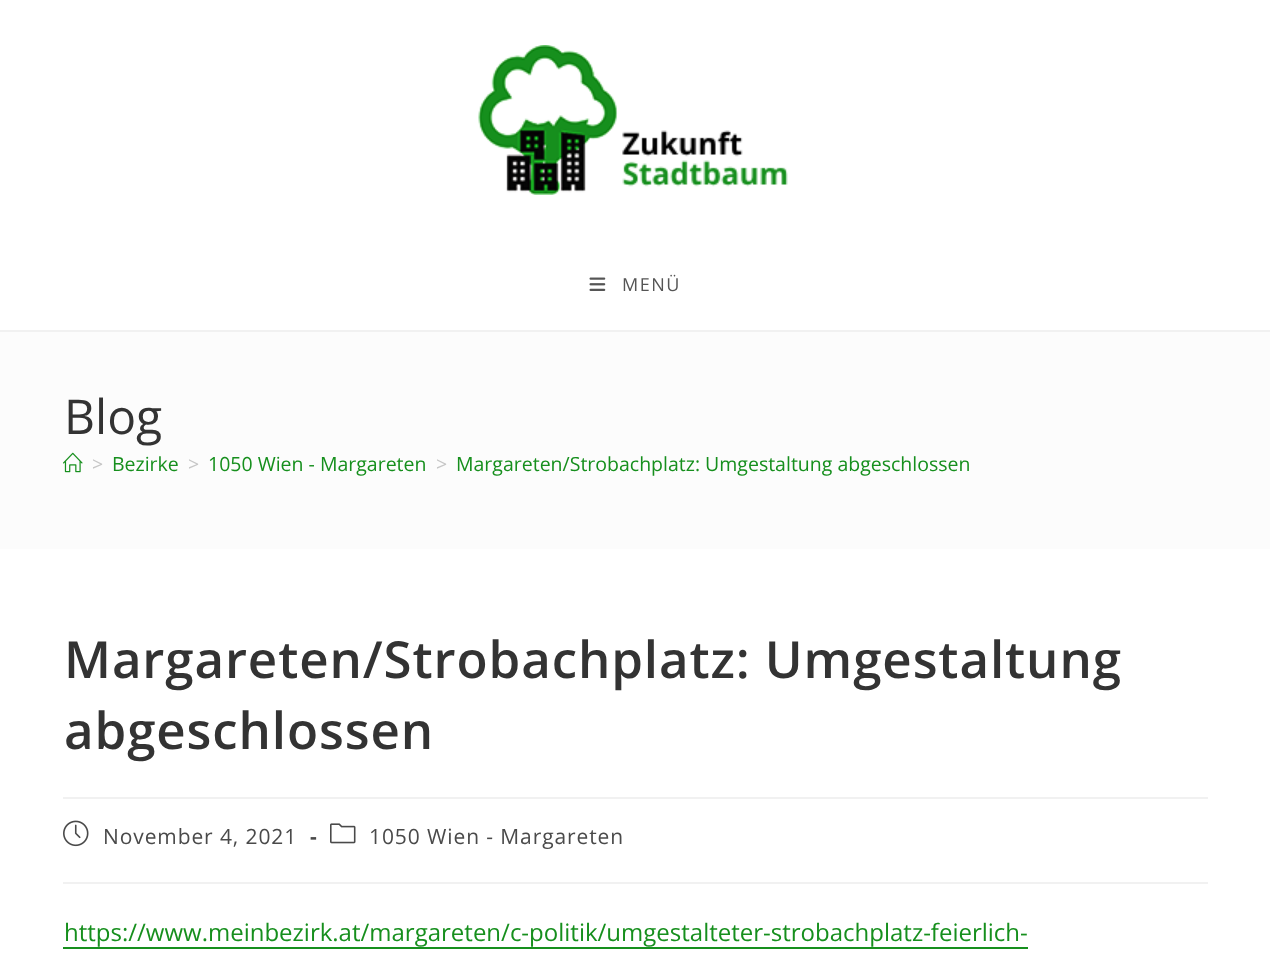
async function draw(canvas) {
  canvas.width = 1270;
  canvas.height = 956;
  const ctx = canvas.getContext('2d');
  ctx.miterLimit = 4;
  ctx.fontKerning = 'normal';
  function label(s, x, y, font, color) {
    ctx.font = font;
    ctx.fillStyle = color;
    ctx.fillText(s, x, y);
  }
  function rect(x, y, w, h, color) {
    ctx.fillStyle = color;
    ctx.fillRect(x, y, w, h);
  }
  async function image(src, x, y, w, h) {
    const img = new Image();
    img.src = src;
    await img.decode();
    ctx.drawImage(img, x, y, w, h);
  }

  rect(0, 0, 1270, 956, '#fff');
  rect(0, 330, 1270, 2, '#f1f1f1');
  await image('assets/img1.png', 478, 45, 310, 150);
  await image('assets/img2.png', 589, 277, 17, 14);
  ctx.letterSpacing = '1.5px';
  label('MENÜ', 622, 291, '18px Open Sans', '#555');
  rect(0, 332, 1270, 217, '#fcfcfc');
  ctx.letterSpacing = '0px';
  label('Blog', 64, 434, '48px Open Sans', '#333');
  await image('assets/img3.png', 63, 452, 20, 21);
  label('>', 92, 471, '19.5px Open Sans', '#c6c6c6');
  label('Bezirke', 112, 471, '19.5px Open Sans', '#168f1d');
  label('>', 188, 471, '19.5px Open Sans', '#c6c6c6');
  label('1050 Wien - Margareten', 208, 471, '19.5px Open Sans', '#168f1d');
  label('>', 436, 471, '19.5px Open Sans', '#c6c6c6');
  label('Margareten/Strobachplatz: Umgestaltung abgeschlossen', 456, 471, '19.5px Open Sans', '#168f1d');
  rect(63, 797, 1145, 2, '#f1f1f1');
  ctx.letterSpacing = '0.9px';
  label('Margareten/Strobachplatz: Umgestaltung', 64, 678, '600 51px Open Sans', '#333');
  label('abgeschlossen', 64, 749, '600 51px Open Sans', '#333');
  rect(63, 882, 1145, 2, '#f1f1f1');
  await image('assets/img4.png', 63, 820, 26, 27);
  label('November 4, 2021', 103, 844, '21px Open Sans', '#4a4a4a');
  label('-', 310, 844, 'bold 21px Open Sans', '#4a4a4a');
  await image('assets/img5.png', 330, 823, 26, 21);
  label('1050 Wien - Margareten', 369, 844, '21px Open Sans', '#4a4a4a');
  ctx.letterSpacing = '0px';
  label('https://www.meinbezirk.at/margareten/c-politik/umgestalteter-strobachplatz-feierlich-', 64, 941, '24px Open Sans', '#168f1d');
  rect(63, 947, 965, 2, '#168f1d');
}

draw(document.querySelector('canvas'));
